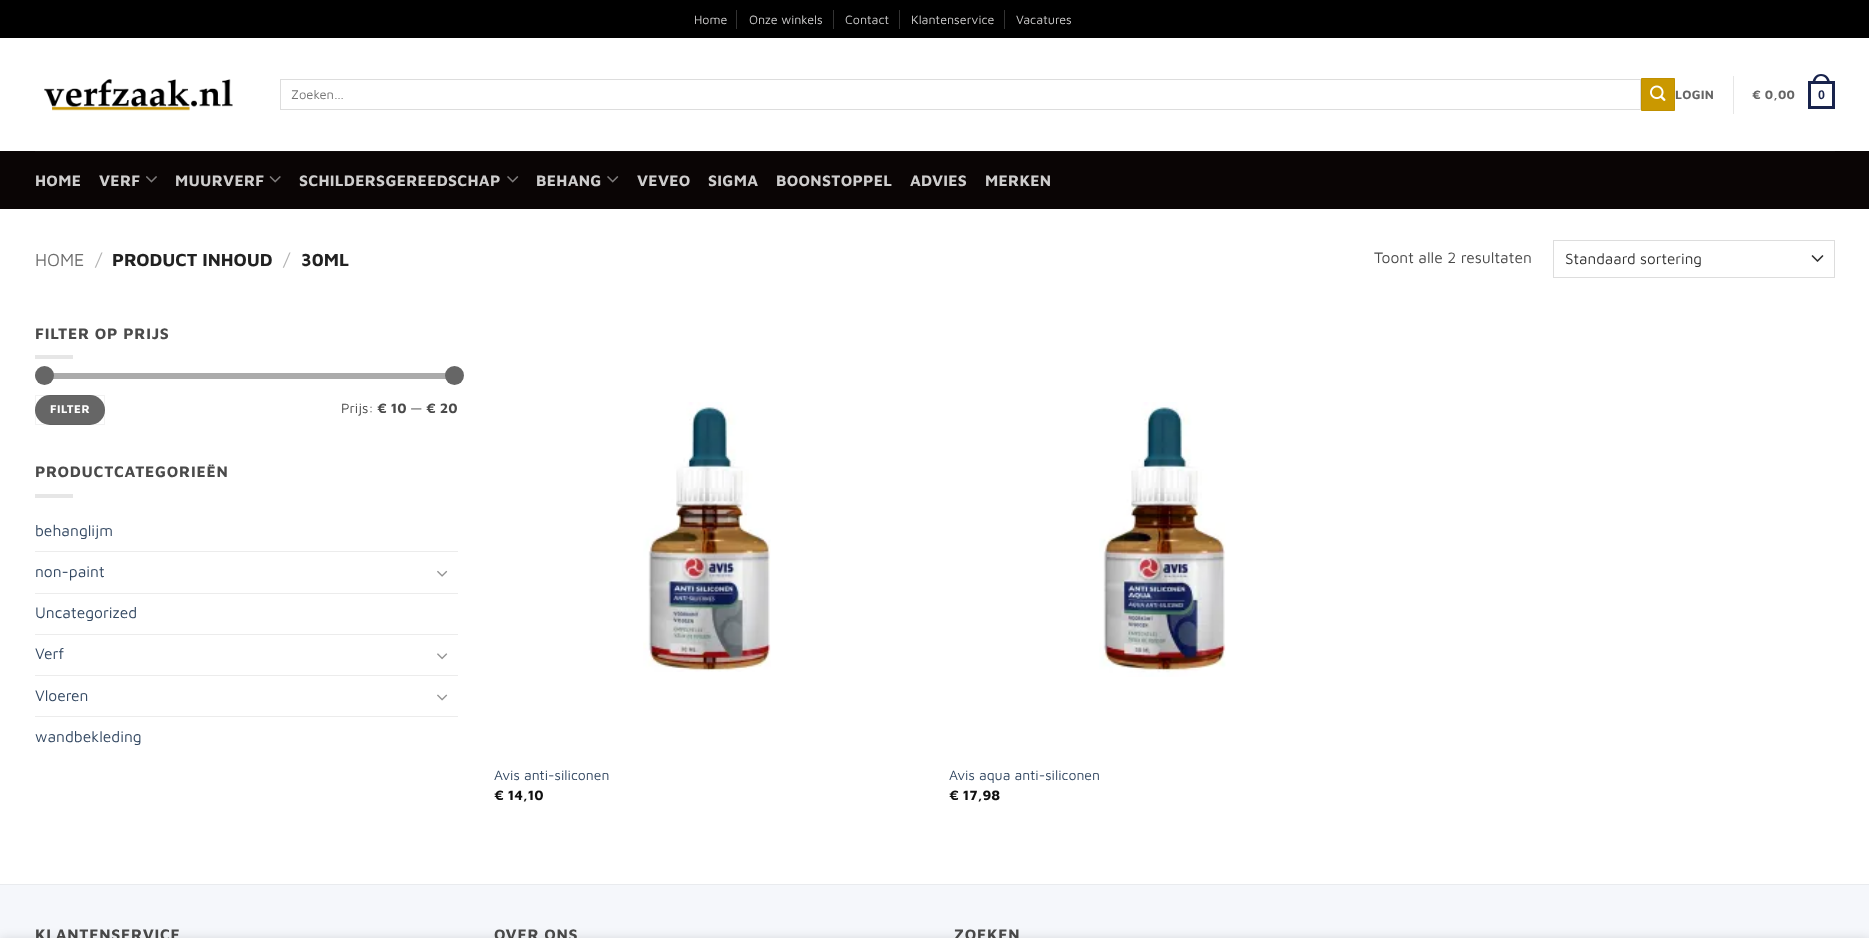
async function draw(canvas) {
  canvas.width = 1869;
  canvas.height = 938;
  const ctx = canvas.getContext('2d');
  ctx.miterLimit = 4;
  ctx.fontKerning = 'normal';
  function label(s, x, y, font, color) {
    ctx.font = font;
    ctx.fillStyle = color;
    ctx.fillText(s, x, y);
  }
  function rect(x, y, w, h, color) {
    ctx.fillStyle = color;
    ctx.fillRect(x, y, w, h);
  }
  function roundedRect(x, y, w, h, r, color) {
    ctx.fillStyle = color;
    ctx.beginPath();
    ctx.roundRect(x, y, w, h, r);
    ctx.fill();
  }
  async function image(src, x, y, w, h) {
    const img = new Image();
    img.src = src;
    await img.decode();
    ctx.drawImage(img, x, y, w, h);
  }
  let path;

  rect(0, 0, 1869, 938, '#fff');
  rect(0, 0, 1869, 38, '#000');
  label('Home', 694, 24, '12.5px Maven Pro', '#cecdcd');
  rect(736, 10, 1, 19, '#333');
  label('Onze winkels', 749, 24, '12.5px Maven Pro', '#cecdcd');
  rect(833, 10, 1, 19, '#333');
  label('Contact', 845, 24, '12.5px Maven Pro', '#cecdcd');
  rect(899, 10, 1, 19, '#333');
  label('Klantenservice', 911, 24, '12.5px Maven Pro', '#cecdcd');
  rect(1004, 10, 1, 19, '#333');
  label('Vacatures', 1016, 24, '12.5px Maven Pro', '#cecdcd');
  await image('assets/img1.png', 44, 79, 189, 32);
  ctx.strokeStyle = '#ddd';
  ctx.strokeRect(280.5, 79.5, 1360, 30);
  label('Zoeken…', 291, 99, '13px Maven Pro', '#757575');
  ctx.fillStyle = '#ca9800';
  ctx.beginPath();
  ctx.rect(1641.5, 78.5, 33, 32);
  ctx.fill();
  ctx.strokeStyle = '#c09000';
  ctx.stroke();
  await image('assets/img2.png', 1650, 85, 16, 16);
  ctx.letterSpacing = '0.25px';
  label('LOGIN', 1675, 99, 'bold 12.5px Maven Pro', '#656565');
  rect(1733, 76, 1, 38, '#e6e6e6');
  label('€ 0,00', 1752, 99, 'bold 12.5px Maven Pro', '#656565');
  ctx.strokeStyle = '#18234c';
  ctx.lineWidth = 3;
  ctx.strokeRect(1809.5, 82.5, 24, 25);
  ctx.fillStyle = '#18234c';
  path = new Path2D('M1821 74C1827 74 1830 78.5 1830 84H1812.5C1812.5 78.5 1815.5 74 1821 74ZM1821 76C1825.5 76 1827.5 80 1827.5 84H1815C1815 80 1817 76 1821 76Z');
  ctx.fill(path, 'evenodd');
  label('0', 1818, 99, 'bold 12.5px Liberation Sans', '#18234c');
  rect(0, 151, 1869, 58, '#0a0505');
  rect(35, 151, 1800, 1, '#100c0c');
  ctx.letterSpacing = '0.3px';
  label('HOME', 35, 186, 'bold 15.6px Maven Pro', '#cecdcd');
  label('VERF', 99, 186, 'bold 15.6px Maven Pro', '#cecdcd');
  await image('assets/img3.png', 146, 176, 11, 7);
  label('MUURVERF', 175, 186, 'bold 15.6px Maven Pro', '#cecdcd');
  await image('assets/img4.png', 269, 176, 12, 7);
  label('SCHILDERSGEREEDSCHAP', 299, 186, 'bold 15.6px Maven Pro', '#cecdcd');
  await image('assets/img5.png', 507, 176, 12, 7);
  label('BEHANG', 536, 186, 'bold 15.6px Maven Pro', '#cecdcd');
  await image('assets/img5.png', 607, 176, 12, 7);
  label('VEVEO', 637, 186, 'bold 15.6px Maven Pro', '#cecdcd');
  label('SIGMA', 708, 186, 'bold 15.6px Maven Pro', '#cecdcd');
  label('BOONSTOPPEL', 776, 186, 'bold 15.6px Maven Pro', '#cecdcd');
  label('ADVIES', 910, 186, 'bold 15.6px Maven Pro', '#cecdcd');
  label('MERKEN', 985, 186, 'bold 15.6px Maven Pro', '#cecdcd');
  ctx.letterSpacing = '0px';
  label('HOME', 35, 266, '18px Maven Pro', '#6e6e6e');
  label('/', 95, 266, '18px Maven Pro', '#b2b2b2');
  label('PRODUCT INHOUD', 112, 266, 'bold 18px Maven Pro', '#222');
  label('/', 283, 266, '18px Maven Pro', '#b2b2b2');
  label('30ML', 301, 266, 'bold 18px Maven Pro', '#222');
  label('Toont alle 2 resultaten', 1374, 263, '15.6px Maven Pro', '#4a4a4a');
  path = new Path2D('M1812.5 256L1817.5 261L1822.5 256');
  ctx.strokeStyle = '#333';
  ctx.lineWidth = 1.7;
  ctx.lineCap = 'round';
  ctx.lineJoin = 'round';
  ctx.stroke(path);
  ctx.strokeStyle = '#ddd';
  ctx.lineWidth = 1;
  ctx.lineJoin = 'miter';
  ctx.strokeRect(1553.5, 240.5, 281, 37);
  label('Standaard sortering', 1565, 264, '15.25px Maven Pro', '#333');
  ctx.letterSpacing = '0.75px';
  label('FILTER OP PRIJS', 35, 339, 'bold 15.6px Maven Pro', '#4a4a4a');
  rect(35, 355, 38, 4, '#e6e6e6');
  roundedRect(35, 373, 423, 6, 3, '#f1f1f1');
  roundedRect(35, 373, 423, 6, 3, '#66666680');
  ctx.fillStyle = '#666';
  ctx.beginPath();
  ctx.arc(44.5, 375.5, 9.5, 0, 2 * Math.PI);
  ctx.fill();
  ctx.beginPath();
  ctx.arc(454.5, 375.5, 9.5, 0, 2 * Math.PI);
  ctx.fill();
  roundedRect(35, 395, 70, 30, 15, '#666');
  ctx.strokeStyle = '#0000000d';
  ctx.strokeRect(35.5, 395.5, 69, 29);
  ctx.letterSpacing = '0.5px';
  label('FILTER', 50, 413, 'bold 11.5px Maven Pro', '#fff');
  ctx.letterSpacing = '0px';
  label('Prijs:', 341, 413, '14px Maven Pro', '#4a4a4a');
  label('€ 10', 377, 413, 'bold 14px Maven Pro', '#4a4a4a');
  label('—', 410, 413, '14px Maven Pro', '#4a4a4a');
  label('€ 20', 426, 413, 'bold 14px Maven Pro', '#4a4a4a');
  ctx.letterSpacing = '0.75px';
  label('PRODUCTCATEGORIEËN', 35, 477, 'bold 15.6px Maven Pro', '#4a4a4a');
  rect(35, 494, 38, 4, '#e6e6e6');
  ctx.letterSpacing = '0px';
  label('behanglijm', 35, 536, '15.6px Maven Pro', '#334862');
  rect(35, 551, 423, 1, '#ececec');
  label('non-paint', 35, 577, '15.6px Maven Pro', '#334862');
  await image('assets/img6.png', 437, 570, 11, 7);
  rect(35, 593, 423, 1, '#ececec');
  label('Uncategorized', 35, 618, '15.6px Maven Pro', '#334862');
  rect(35, 634, 423, 1, '#ececec');
  label('Verf', 35, 659, '15.6px Maven Pro', '#334862');
  await image('assets/img7.png', 437, 653, 11, 7);
  rect(35, 675, 423, 1, '#ececec');
  label('Vloeren', 35, 701, '15.6px Maven Pro', '#334862');
  await image('assets/img8.png', 437, 694, 11, 7);
  rect(35, 716, 423, 1, '#ececec');
  label('wandbekleding', 35, 742, '15.6px Maven Pro', '#334862');
  await image('assets/img9.png', 643, 402, 128, 270);
  label('Avis anti-siliconen', 494, 780, '14px Maven Pro', '#334862');
  label('€ 14,10', 494, 800, 'bold 14px Maven Pro', '#111');
  await image('assets/img10.png', 1099, 402, 127, 275);
  label('Avis aqua anti-siliconen', 949, 780, '14px Maven Pro', '#334862');
  label('€ 17,98', 949, 800, 'bold 14px Maven Pro', '#111');
  rect(0, 885, 1869, 53, '#f5f7fb');
  rect(0, 884, 1869, 1, '#e9ebee');
  ctx.letterSpacing = '0.75px';
  label('KLANTENSERVICE', 35, 940, 'bold 15.6px Maven Pro', '#4a4a4a');
  label('OVER ONS', 494, 940, 'bold 15.6px Maven Pro', '#4a4a4a');
  label('ZOEKEN', 954, 940, 'bold 15.6px Maven Pro', '#4a4a4a');
  ctx.fillStyle = '#00000024';
  ctx.filter = 'blur(5.5px)';
  ctx.beginPath();
  ctx.rect(0, 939, 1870, 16);
  ctx.fill();
  ctx.filter = 'none';
}

draw(document.querySelector('canvas'));
